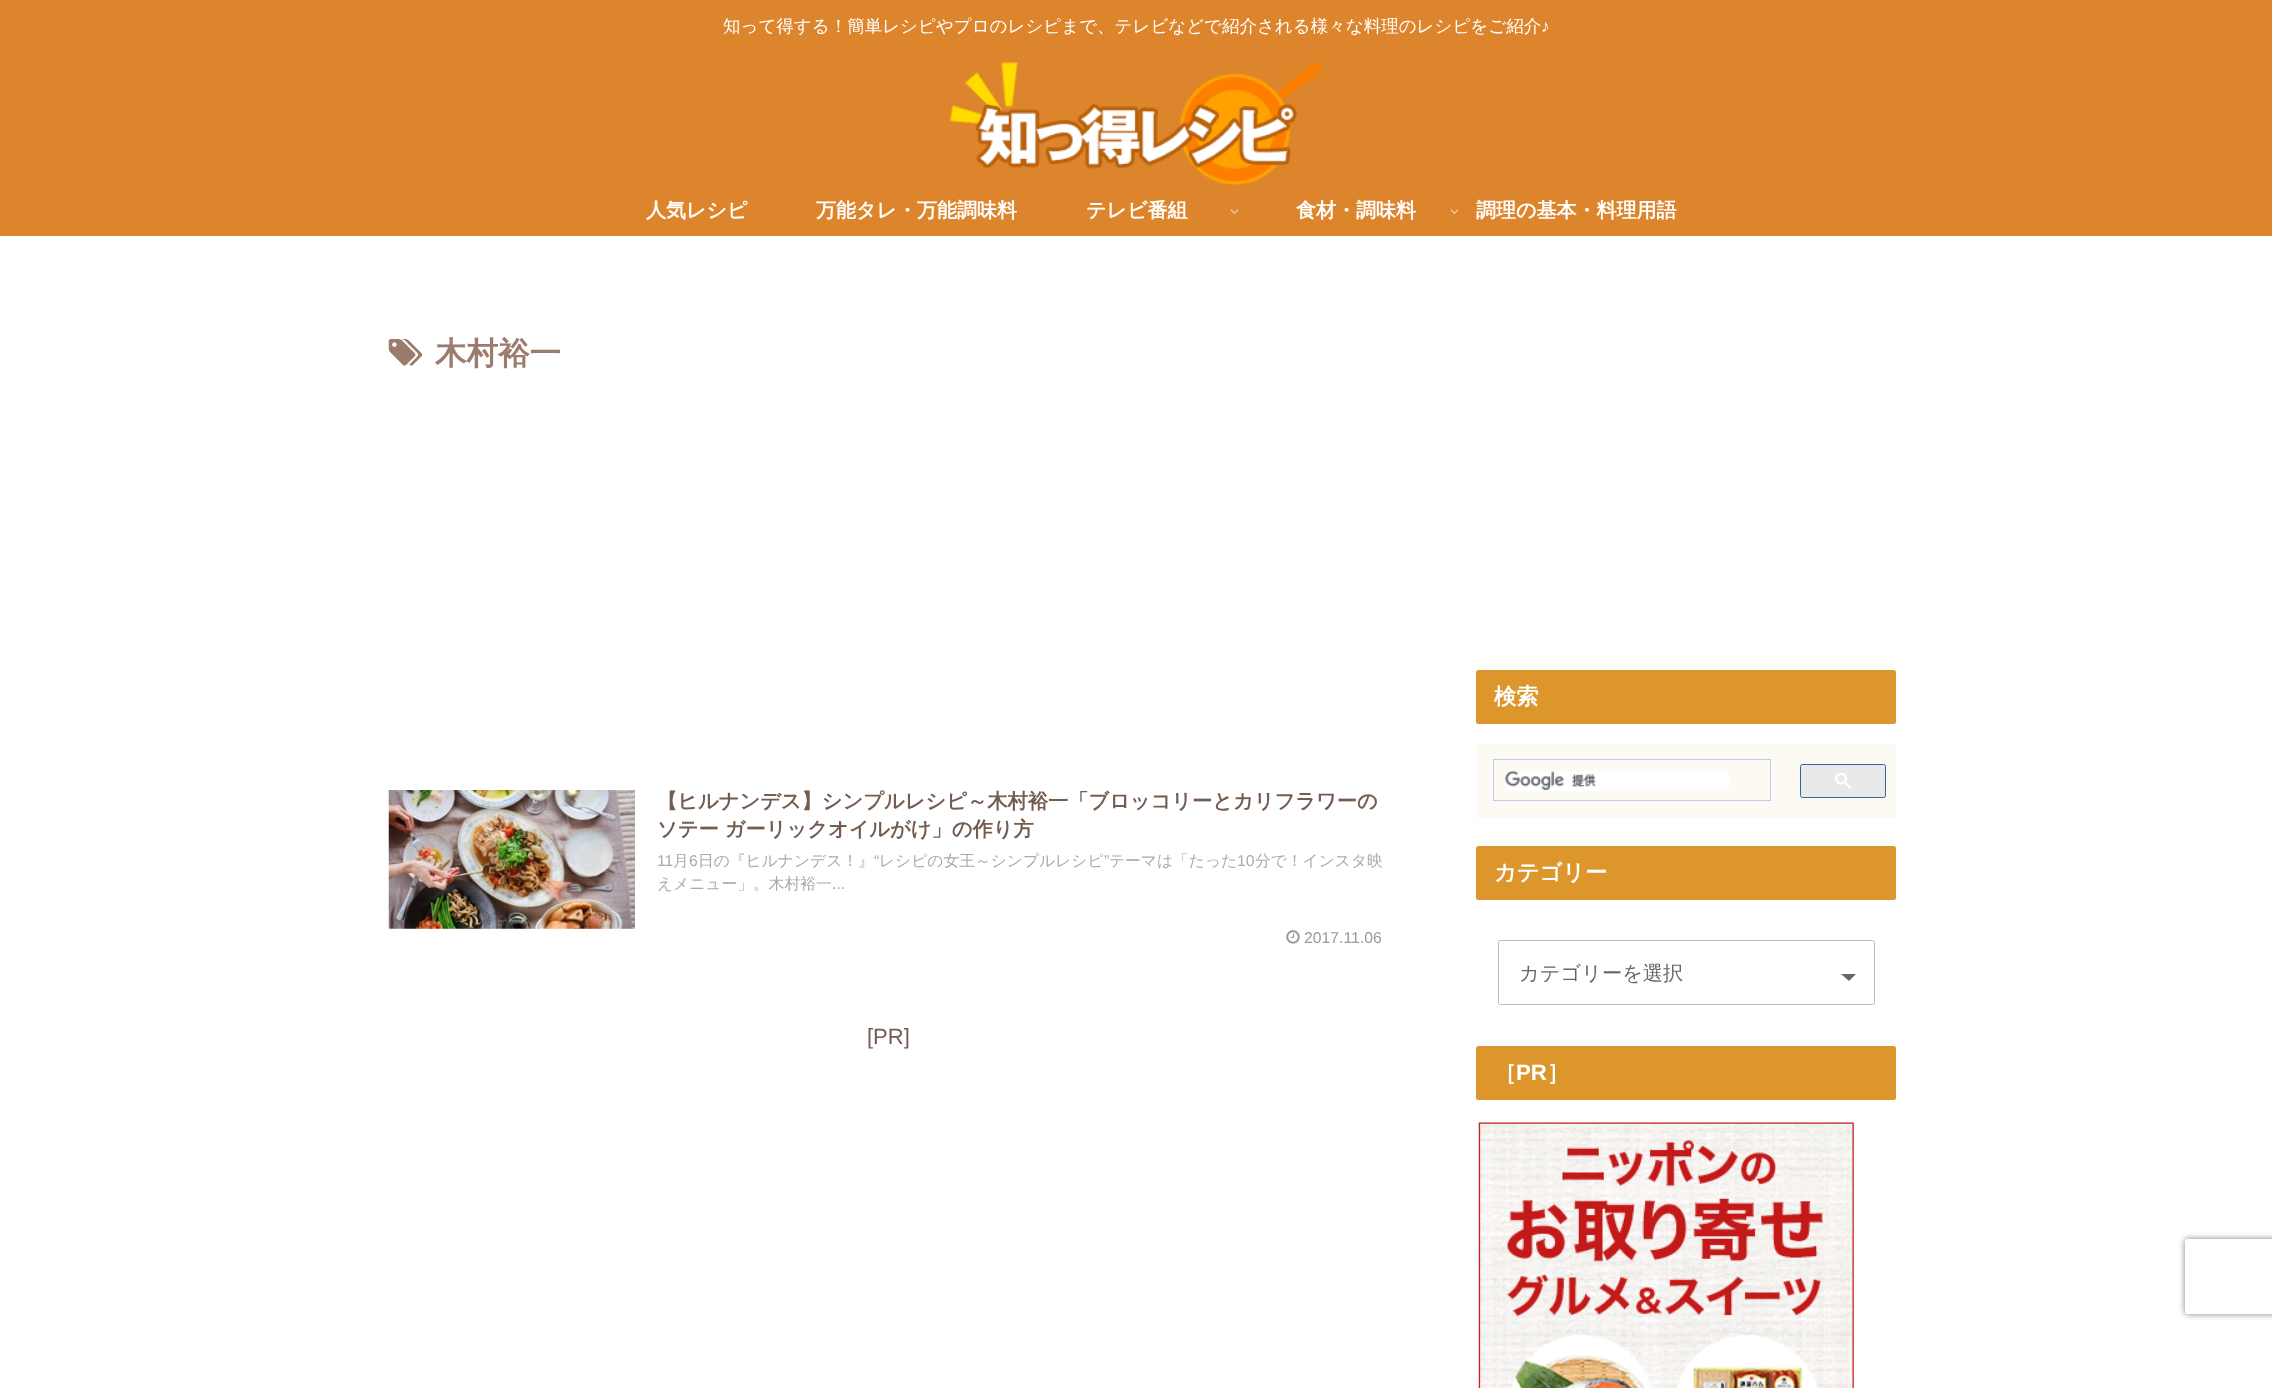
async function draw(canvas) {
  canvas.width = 2272;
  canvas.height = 1388;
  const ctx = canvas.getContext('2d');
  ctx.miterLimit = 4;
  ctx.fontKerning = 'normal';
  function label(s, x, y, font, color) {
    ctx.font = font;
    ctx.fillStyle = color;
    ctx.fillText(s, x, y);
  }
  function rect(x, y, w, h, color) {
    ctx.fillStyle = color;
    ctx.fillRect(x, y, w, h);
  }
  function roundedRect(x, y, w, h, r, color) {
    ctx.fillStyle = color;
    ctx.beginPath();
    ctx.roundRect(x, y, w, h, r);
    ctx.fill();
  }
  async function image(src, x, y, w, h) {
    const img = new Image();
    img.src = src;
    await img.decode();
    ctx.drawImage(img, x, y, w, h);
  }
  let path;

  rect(0, 0, 2272, 1388, '#fff');
  rect(0, 0, 2272, 236, '#dd852c');
  label('知って得する！簡単レシピやプロのレシピまで、テレビなどで紹介される様々な料理のレシピをご紹介', 723, 32, '500 17.5px WenQuanYi Zen Hei', '#fff');
  label('♪', 1541, 32, '17.5px Liberation Sans', '#fff');
  await image('assets/img1.png', 950, 62, 373, 125);
  label('人気レシピ', 646, 217, 'bold 20px WenQuanYi Zen Hei', '#fff');
  label('万能タレ・万能調味料', 816, 217, 'bold 20px WenQuanYi Zen Hei', '#fff');
  label('テレビ番組', 1086, 217, 'bold 20px WenQuanYi Zen Hei', '#fff');
  await image('assets/img2.png', 1230, 209, 9, 5);
  label('食材・調味料', 1296, 217, 'bold 20px WenQuanYi Zen Hei', '#fff');
  await image('assets/img2.png', 1450, 209, 9, 5);
  label('調理の基本・料理用語', 1476, 217, 'bold 20px WenQuanYi Zen Hei', '#fff');
  await image('assets/img3.png', 388, 339, 35, 27);
  label('木村裕一', 435, 364, 'bold 31.5px WenQuanYi Zen Hei', '#9b7b6c');
  await image('assets/img4.png', 388, 790, 247, 139);
  label('【ヒルナンデス】シンプルレシピ～木村裕一「ブロッコリーとカリフラワーの', 657, 808, 'bold 20.25px WenQuanYi Zen Hei', '#745c51');
  label('ソテー ガーリックオイルがけ」の作り方', 657, 836, 'bold 20.25px WenQuanYi Zen Hei', '#745c51');
  label('11', 657, 866, '15.75px Liberation Sans', '#aaa');
  label('月', 673, 866, '500 15.75px WenQuanYi Zen Hei', '#aaa');
  label('6', 689, 866, '15.75px Liberation Sans', '#aaa');
  label('日の『ヒルナンデス！』', 698, 866, '500 15.75px WenQuanYi Zen Hei', '#aaa');
  label('“', 874, 866, '15.75px Liberation Sans', '#aaa');
  label('レシピの女王～シンプルレシピ', 879, 866, '500 15.75px WenQuanYi Zen Hei', '#aaa');
  label('”', 1104, 866, '15.75px Liberation Sans', '#aaa');
  label('テーマは「たった', 1109, 866, '500 15.75px WenQuanYi Zen Hei', '#aaa');
  label('10', 1237, 866, '15.75px Liberation Sans', '#aaa');
  label('分で！インスタ映', 1255, 866, '500 15.75px WenQuanYi Zen Hei', '#aaa');
  label('えメニュー」。木村裕一', 657, 889, '500 15.75px WenQuanYi Zen Hei', '#aaa');
  label('...', 832, 889, '15.75px Liberation Sans', '#aaa');
  await image('assets/img5.png', 1286, 930, 14, 14);
  label('2017.11.06', 1304, 943, '15.75px Liberation Sans', '#999');
  label('[PR]', 867, 1044, '22px Liberation Sans', '#745c51');
  roundedRect(1476, 670, 420, 54, 2.5, '#dd962c');
  label('検索', 1494, 704, 'bold 22.25px WenQuanYi Zen Hei', '#fff');
  rect(1476, 744, 420, 74, '#fdfaf4');
  ctx.strokeStyle = '#bccdf0';
  ctx.strokeRect(1493.5, 759.5, 277, 41);
  roundedRect(1505, 771, 224, 20, 5, '#fff');
  await image('assets/img6.png', 1505, 771, 91, 19);
  ctx.fillStyle = '#e9e9e9';
  ctx.beginPath();
  ctx.roundRect(1800.5, 764.5, 85, 33, 2);
  ctx.fill();
  ctx.strokeStyle = '#369';
  ctx.stroke();
  await image('assets/img7.png', 1835, 773, 16, 16);
  roundedRect(1476, 846, 420, 54, 2.5, '#dd962c');
  label('カテゴリー', 1494, 880, 'bold 22.25px WenQuanYi Zen Hei', '#fff');
  ctx.beginPath();
  ctx.roundRect(1498.5, 940.5, 376, 64, 2);
  ctx.strokeStyle = '#bbb';
  ctx.stroke();
  label('カテゴリーを選択', 1519, 980, '500 20.25px WenQuanYi Zen Hei', '#666');
  path = new Path2D('M1841 974H1856L1849 981Z');
  ctx.fill(path);
  roundedRect(1476, 1046, 420, 54, 2.5, '#dd962c');
  label('［', 1494, 1080, 'bold 22.25px WenQuanYi Zen Hei', '#fff');
  label('PR', 1516, 1080, 'bold 22.25px Liberation Sans', '#fff');
  label('］', 1547, 1080, 'bold 22.25px WenQuanYi Zen Hei', '#fff');
  await image('assets/img8.png', 1478, 1122, 376, 266);
  ctx.save();
  path = new Path2D('M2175 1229H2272V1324H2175ZM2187.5 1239H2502.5C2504 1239 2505 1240 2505 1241.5V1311.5C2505 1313 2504 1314 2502.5 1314H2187.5C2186 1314 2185 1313 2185 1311.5V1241.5C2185 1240 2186 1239 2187.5 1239Z');
  ctx.clip(path, 'evenodd');
  ctx.fillStyle = '#808080';
  ctx.filter = 'blur(3px)';
  ctx.beginPath();
  ctx.roundRect(2185, 1239, 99, 75, 2.5);
  ctx.fill();
  ctx.filter = 'none';
  ctx.restore();
}

draw(document.querySelector('canvas'));
